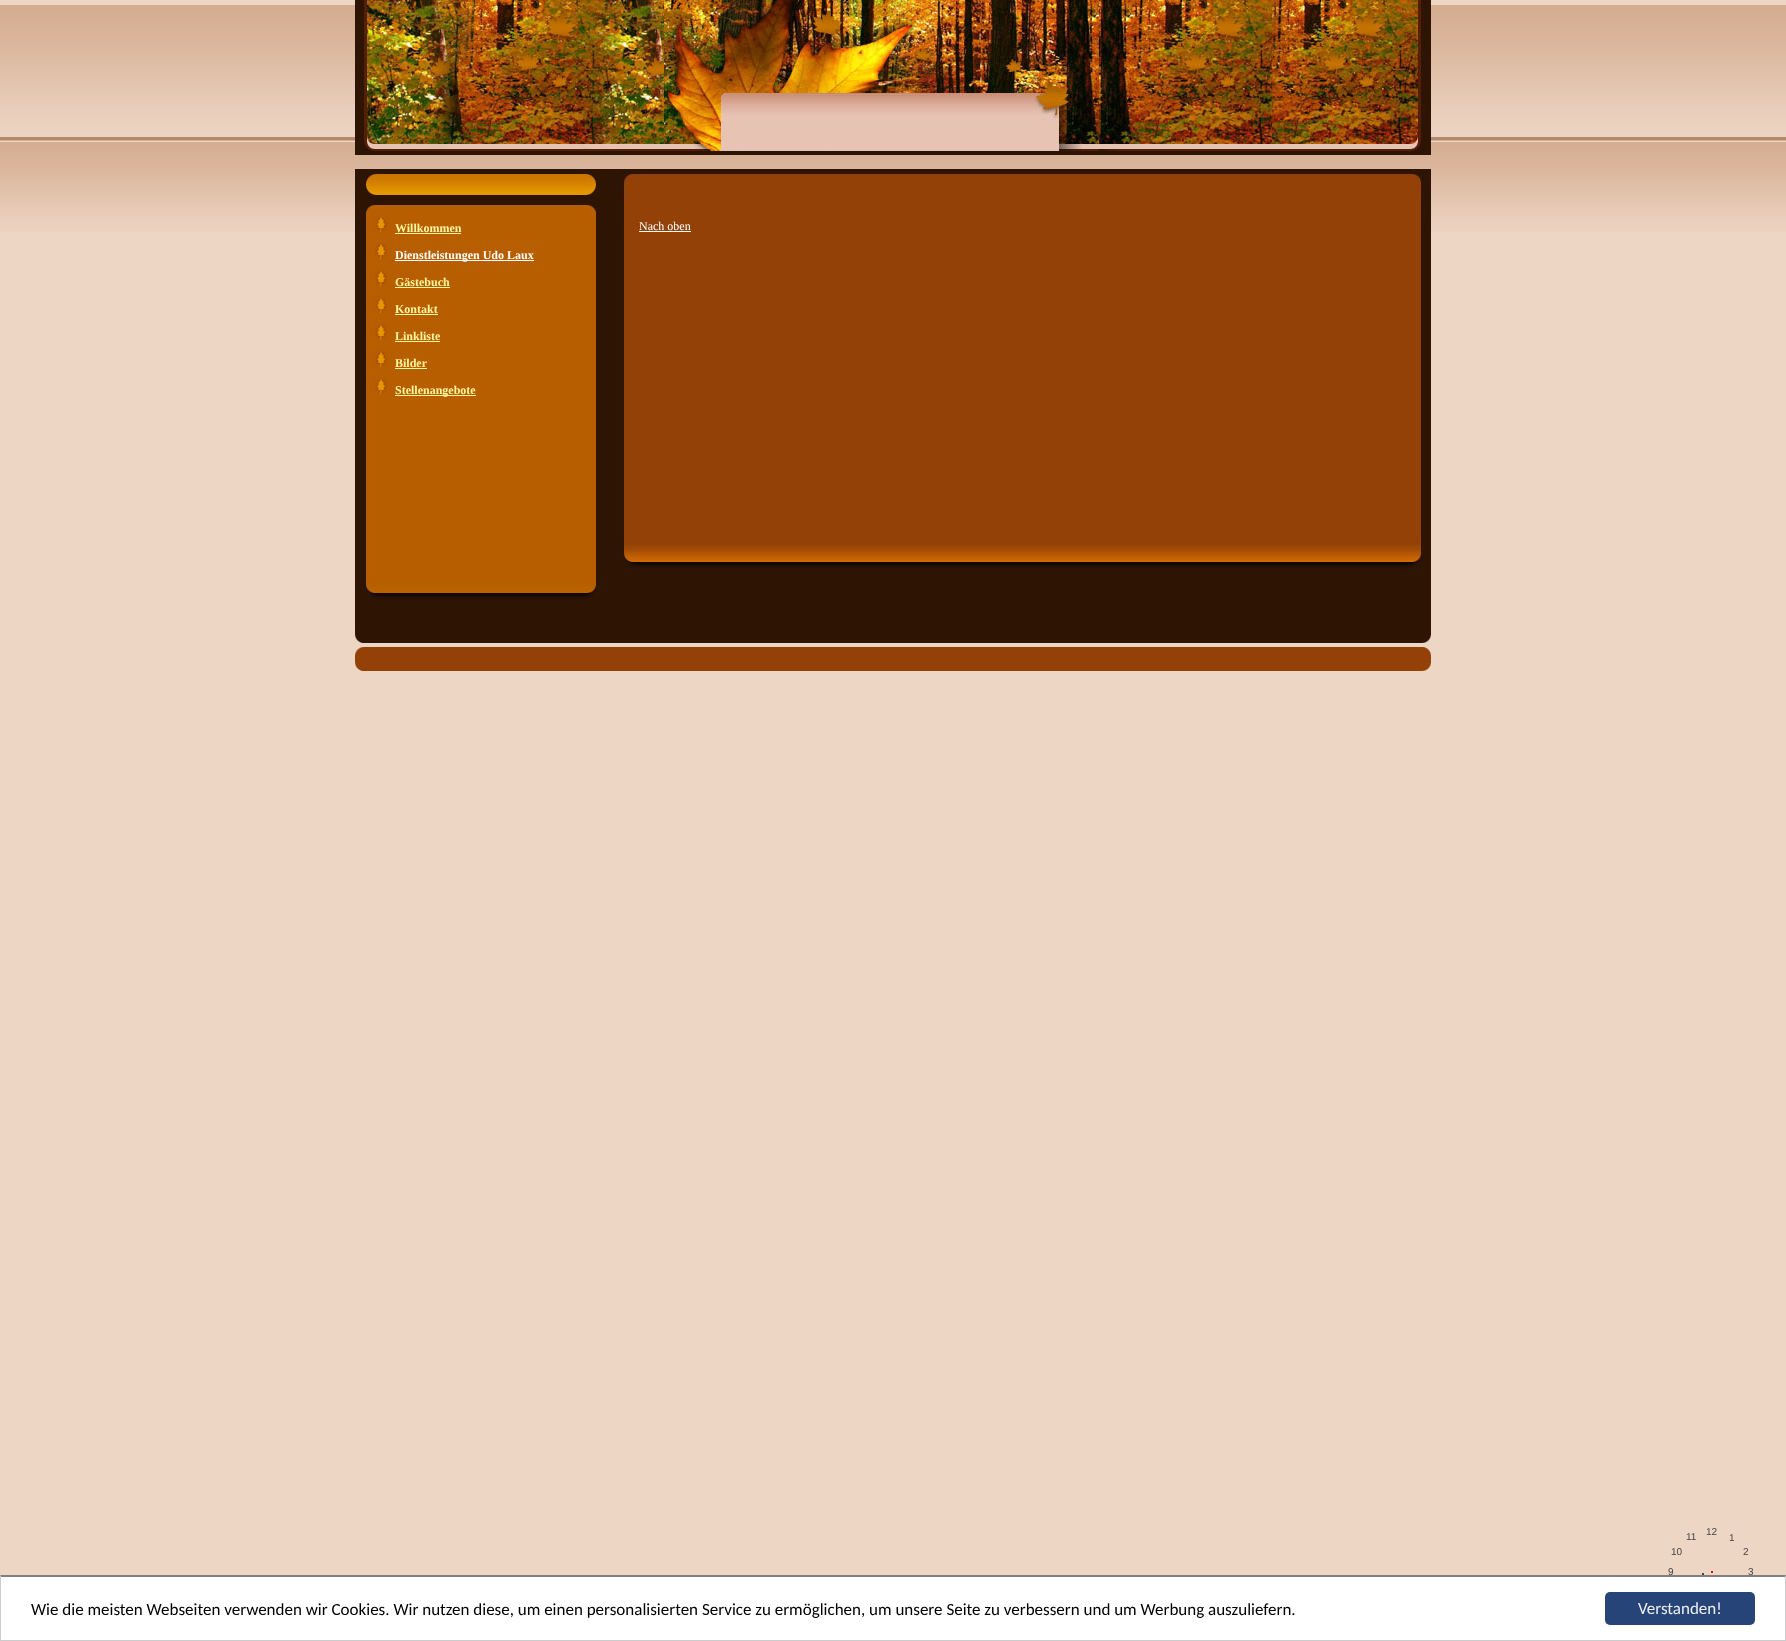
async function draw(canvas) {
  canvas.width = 1786;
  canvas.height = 1641;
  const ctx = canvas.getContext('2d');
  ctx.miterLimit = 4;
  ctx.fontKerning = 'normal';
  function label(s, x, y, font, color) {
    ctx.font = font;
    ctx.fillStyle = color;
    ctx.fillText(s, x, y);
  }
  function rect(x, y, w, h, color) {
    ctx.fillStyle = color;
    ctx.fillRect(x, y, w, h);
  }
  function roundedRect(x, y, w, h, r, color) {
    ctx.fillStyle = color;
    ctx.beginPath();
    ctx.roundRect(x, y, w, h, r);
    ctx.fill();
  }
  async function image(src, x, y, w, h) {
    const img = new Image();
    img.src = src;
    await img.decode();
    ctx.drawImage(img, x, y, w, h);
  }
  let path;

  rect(0, 0, 1786, 1641, '#edd6c4');
  await image('assets/img1.png', 0, 4, 1786, 228);
  await image('assets/img2.png', 355, 0, 1076, 155);
  await image('assets/img3.png', 355, 169, 1076, 370);
  await image('assets/img4.png', 363, 169, 240, 43);
  await image('assets/img5.png', 375, 214, 13, 18);
  label('Willkommen', 395, 232, 'bold 12px Liberation Serif', '#fff79f');
  rect(395, 233, 66, 1, '#fff79f');
  await image('assets/img5.png', 375, 241, 13, 18);
  rect(395, 260, 139, 1, '#fff');
  label('Dienstleistungen Udo Laux', 395, 259, 'bold 12px Liberation Serif', '#fff');
  await image('assets/img5.png', 375, 268, 13, 18);
  label('Gästebuch', 395, 286, 'bold 12px Liberation Serif', '#fff79f');
  rect(395, 287, 55, 1, '#fff79f');
  await image('assets/img5.png', 375, 295, 13, 18);
  label('Kontakt', 395, 313, 'bold 12px Liberation Serif', '#fff79f');
  rect(395, 314, 43, 1, '#fff79f');
  await image('assets/img5.png', 375, 322, 13, 18);
  label('Linkliste', 395, 340, 'bold 12px Liberation Serif', '#fff79f');
  rect(395, 341, 45, 1, '#fff79f');
  await image('assets/img5.png', 375, 349, 13, 18);
  label('Bilder', 395, 367, 'bold 12px Liberation Serif', '#fff79f');
  rect(395, 368, 32, 1, '#fff79f');
  await image('assets/img5.png', 375, 376, 13, 18);
  rect(395, 395, 81, 1, '#fff79f');
  label('Stellenangebote', 395, 394, 'bold 12px Liberation Serif', '#fff79f');
  await image('assets/img6.png', 619, 169, 808, 30);
  label('Nach oben', 639, 230, '12px Liberation Serif', '#fff');
  rect(639, 231, 52, 1, '#fff');
  await image('assets/img7.png', 355, 539, 1076, 132);
  label('12', 1706, 1535, '10px Liberation Sans', '#444');
  label('11', 1686, 1540, '10px Liberation Sans', '#444');
  label('1', 1729, 1541, '10px Liberation Sans', '#444');
  label('10', 1671, 1555, '10px Liberation Sans', '#444');
  label('2', 1743, 1555, '10px Liberation Sans', '#444');
  label('9', 1668, 1575, '10px Liberation Sans', '#444');
  rect(1711, 1571, 2, 2, '#f00');
  label('3', 1748, 1575, '10px Liberation Sans', '#444');
  rect(1702, 1573, 2, 2, '#444');
  rect(1, 1577, 1784, 63, '#fff');
  ctx.fillStyle = '#808080';
  path = new Path2D('M0 1575H1786L1785 1577H1Z');
  ctx.fill(path);
  ctx.fillStyle = '#ccc';
  path = new Path2D('M1786 1575V1641L1785 1640V1577Z');
  ctx.fill(path);
  rect(0, 1640, 1786, 1, '#ccc');
  path = new Path2D('M0 1641V1575L1 1577V1640Z');
  ctx.fill(path);
  label('Wie die meisten Webseiten verwenden wir Cookies. Wir nutzen diese, um einen personalisierten Service zu ermöglichen, um unsere Seite zu verbessern und um Werbung auszuliefern.', 31, 1615, '17px Carlito', '#000');
  roundedRect(1605, 1592, 150, 33, 5, '#274479');
  label('Verstanden!', 1638, 1614, '17px Carlito', '#eee');
}

draw(document.querySelector('canvas'));
